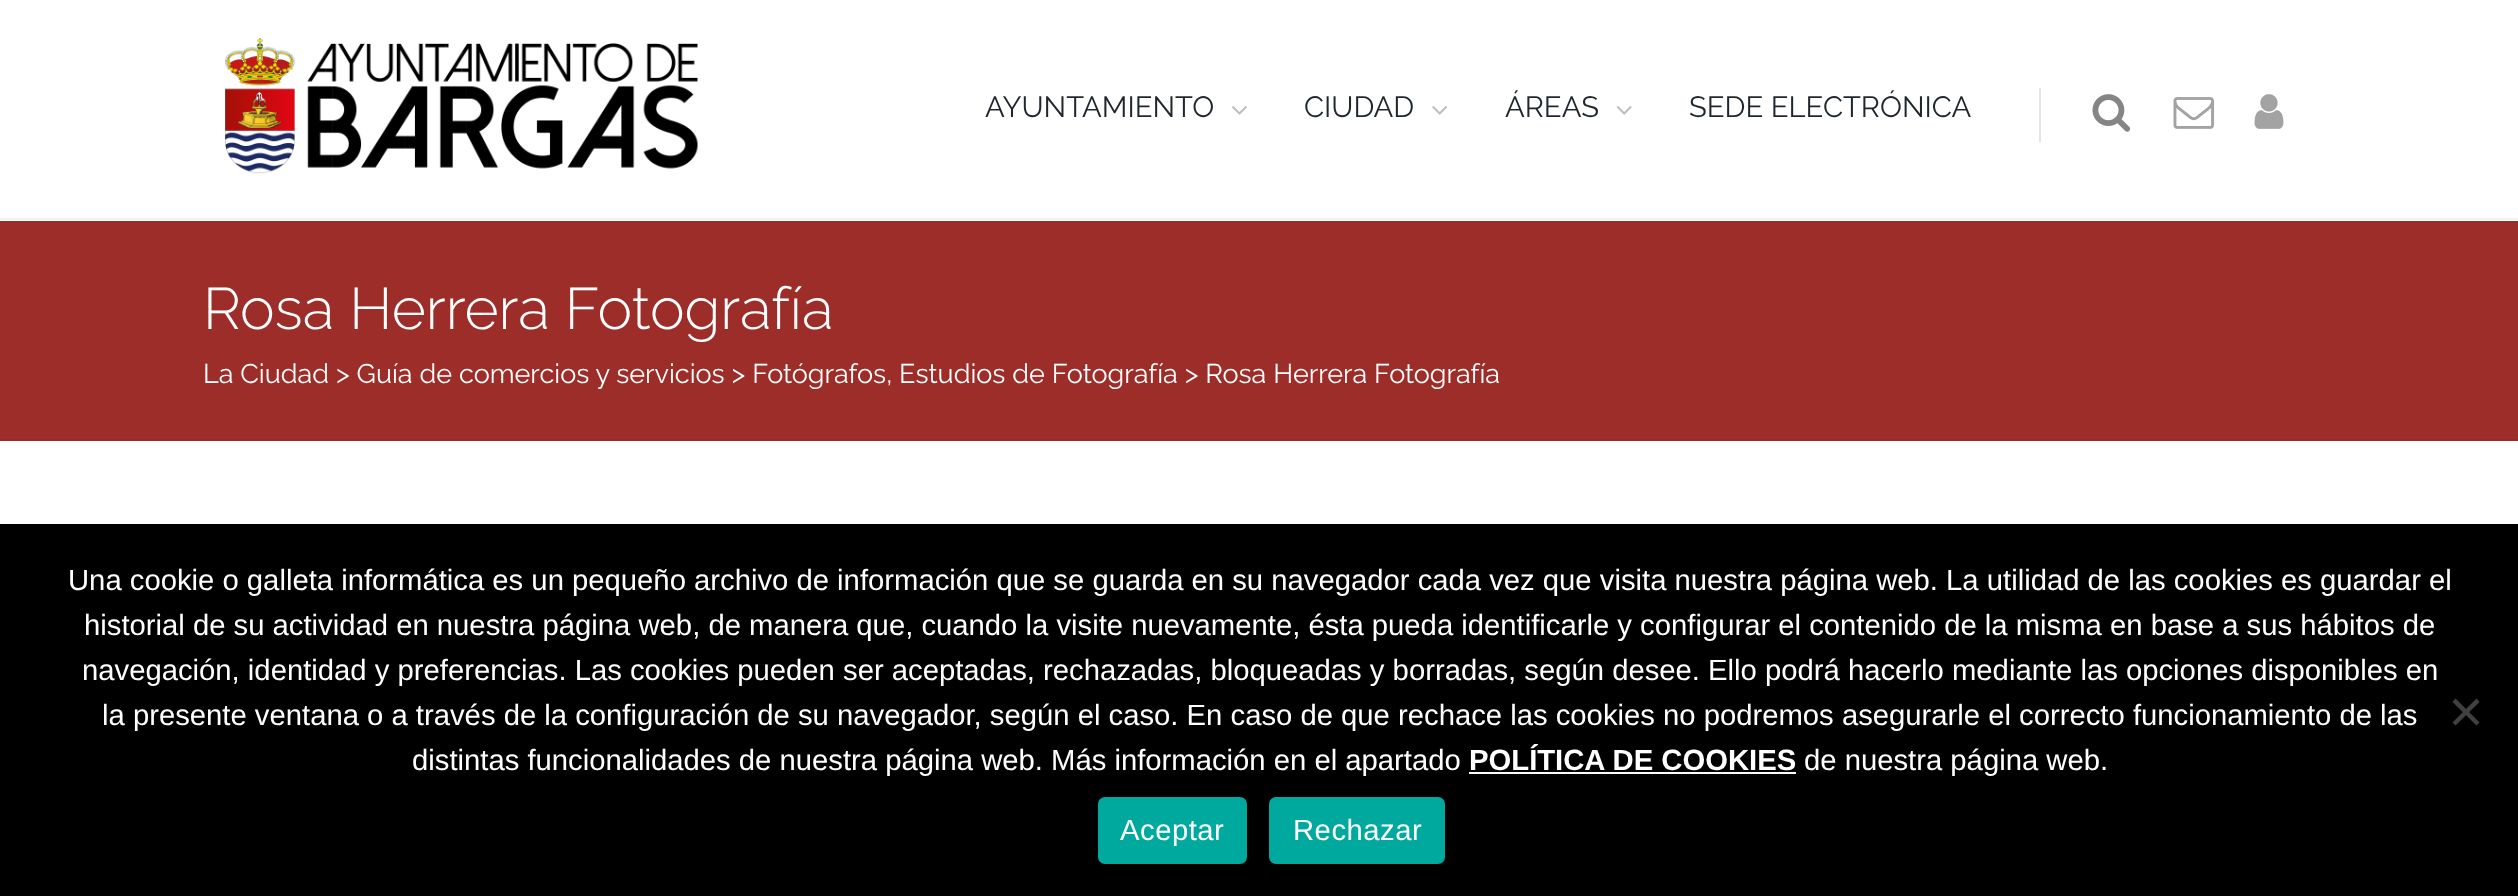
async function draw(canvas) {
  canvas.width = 2518;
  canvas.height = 896;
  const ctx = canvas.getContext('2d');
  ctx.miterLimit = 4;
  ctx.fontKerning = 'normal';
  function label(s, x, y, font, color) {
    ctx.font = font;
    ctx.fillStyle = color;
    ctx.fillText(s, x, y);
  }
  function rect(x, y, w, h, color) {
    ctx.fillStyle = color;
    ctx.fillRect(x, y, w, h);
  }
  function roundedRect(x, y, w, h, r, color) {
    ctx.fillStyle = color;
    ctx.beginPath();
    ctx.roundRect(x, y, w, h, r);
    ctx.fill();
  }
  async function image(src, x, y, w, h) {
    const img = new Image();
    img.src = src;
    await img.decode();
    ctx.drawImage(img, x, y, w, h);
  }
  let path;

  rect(0, 0, 2518, 896, '#fff');
  rect(0, 221, 2518, 218, '#9d2d29');
  ctx.fillStyle = '#0000001a';
  ctx.filter = 'blur(2px)';
  ctx.beginPath();
  ctx.rect(0, 0, 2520, 221);
  ctx.fill();
  ctx.filter = 'none';
  rect(0, 0, 2518, 221, '#fff');
  rect(0, 218, 2518, 2, '#f2f2f2');
  await image('assets/img1.png', 225, 38, 473, 136);
  label('AYUNTAMIENTO', 985, 117, '29.25px Raleway', '#1f262d');
  await image('assets/img2.png', 1232, 106, 15, 9);
  label('CIUDAD', 1304, 117, '29.25px Raleway', '#1f262d');
  await image('assets/img3.png', 1432, 106, 16, 9);
  label('ÁREAS', 1505, 117, '29.25px Raleway', '#1f262d');
  await image('assets/img4.png', 1616, 106, 16, 9);
  label('SEDE ELECTRÓNICA', 1689, 117, '29.25px Raleway', '#1f262d');
  rect(2039, 88, 2, 54, '#e6e6e6');
  await image('assets/img5.png', 2092, 94, 39, 38);
  await image('assets/img6.png', 2173, 97, 41, 32);
  await image('assets/img7.png', 2254, 94, 30, 35);
  rect(0, 439, 2518, 2, '#952b27');
  label('Rosa Herrera Fotografía', 203, 329, '300 58.5px Raleway', '#fff');
  label('La Ciudad > Guía de comercios y servicios > Fotógrafos, Estudios de Fotografía > Rosa Herrera Fotografía', 203, 383, '27px Raleway', '#fff');
  rect(0, 524, 2518, 372, '#000');
  label('Una cookie o galleta informática es un pequeño archivo de información que se guarda en su navegador cada vez que visita nuestra página web. La utilidad de las cookies es guardar el', 68, 590, '29.25px Liberation Sans', '#fff');
  label('historial de su actividad en nuestra página web, de manera que, cuando la visite nuevamente, ésta pueda identificarle y configurar el contenido de la misma en base a sus hábitos de', 84, 635, '29.25px Liberation Sans', '#fff');
  label('navegación, identidad y preferencias. Las cookies pueden ser aceptadas, rechazadas, bloqueadas y borradas, según desee. Ello podrá hacerlo mediante las opciones disponibles en', 82, 680, '29.25px Liberation Sans', '#fff');
  label('la presente ventana o a través de la configuración de su navegador, según el caso. En caso de que rechace las cookies no podremos asegurarle el correcto funcionamiento de las', 102, 725, '29.25px Liberation Sans', '#fff');
  label('distintas funcionalidades de nuestra página web. Más información en el apartado', 412, 770, '29.25px Liberation Sans', '#fff');
  label('POLÍTICA DE COOKIES', 1469, 770, 'bold 29.25px Liberation Sans', '#fff');
  rect(1469, 772, 327, 2, '#fff');
  label('de nuestra página web.', 1804, 770, '29.25px Liberation Sans', '#fff');
  ctx.fillStyle = '#404040';
  path = new Path2D('M2476.5 698.5L2479.5 702L2455.5 725.5L2452.5 722.5Z');
  ctx.fill(path);
  path = new Path2D('M2452.5 702L2455.5 698.5L2479.5 722.5L2476.5 725.5Z');
  ctx.fill(path);
  roundedRect(1098, 797, 149, 67, 7, '#00a99d');
  ctx.letterSpacing = '0.5px';
  label('Aceptar', 1120, 840, '29.25px Liberation Sans', '#fff');
  roundedRect(1269, 797, 176, 67, 7, '#00a99d');
  label('Rechazar', 1293, 840, '29.25px Liberation Sans', '#fff');
}

draw(document.querySelector('canvas'));
